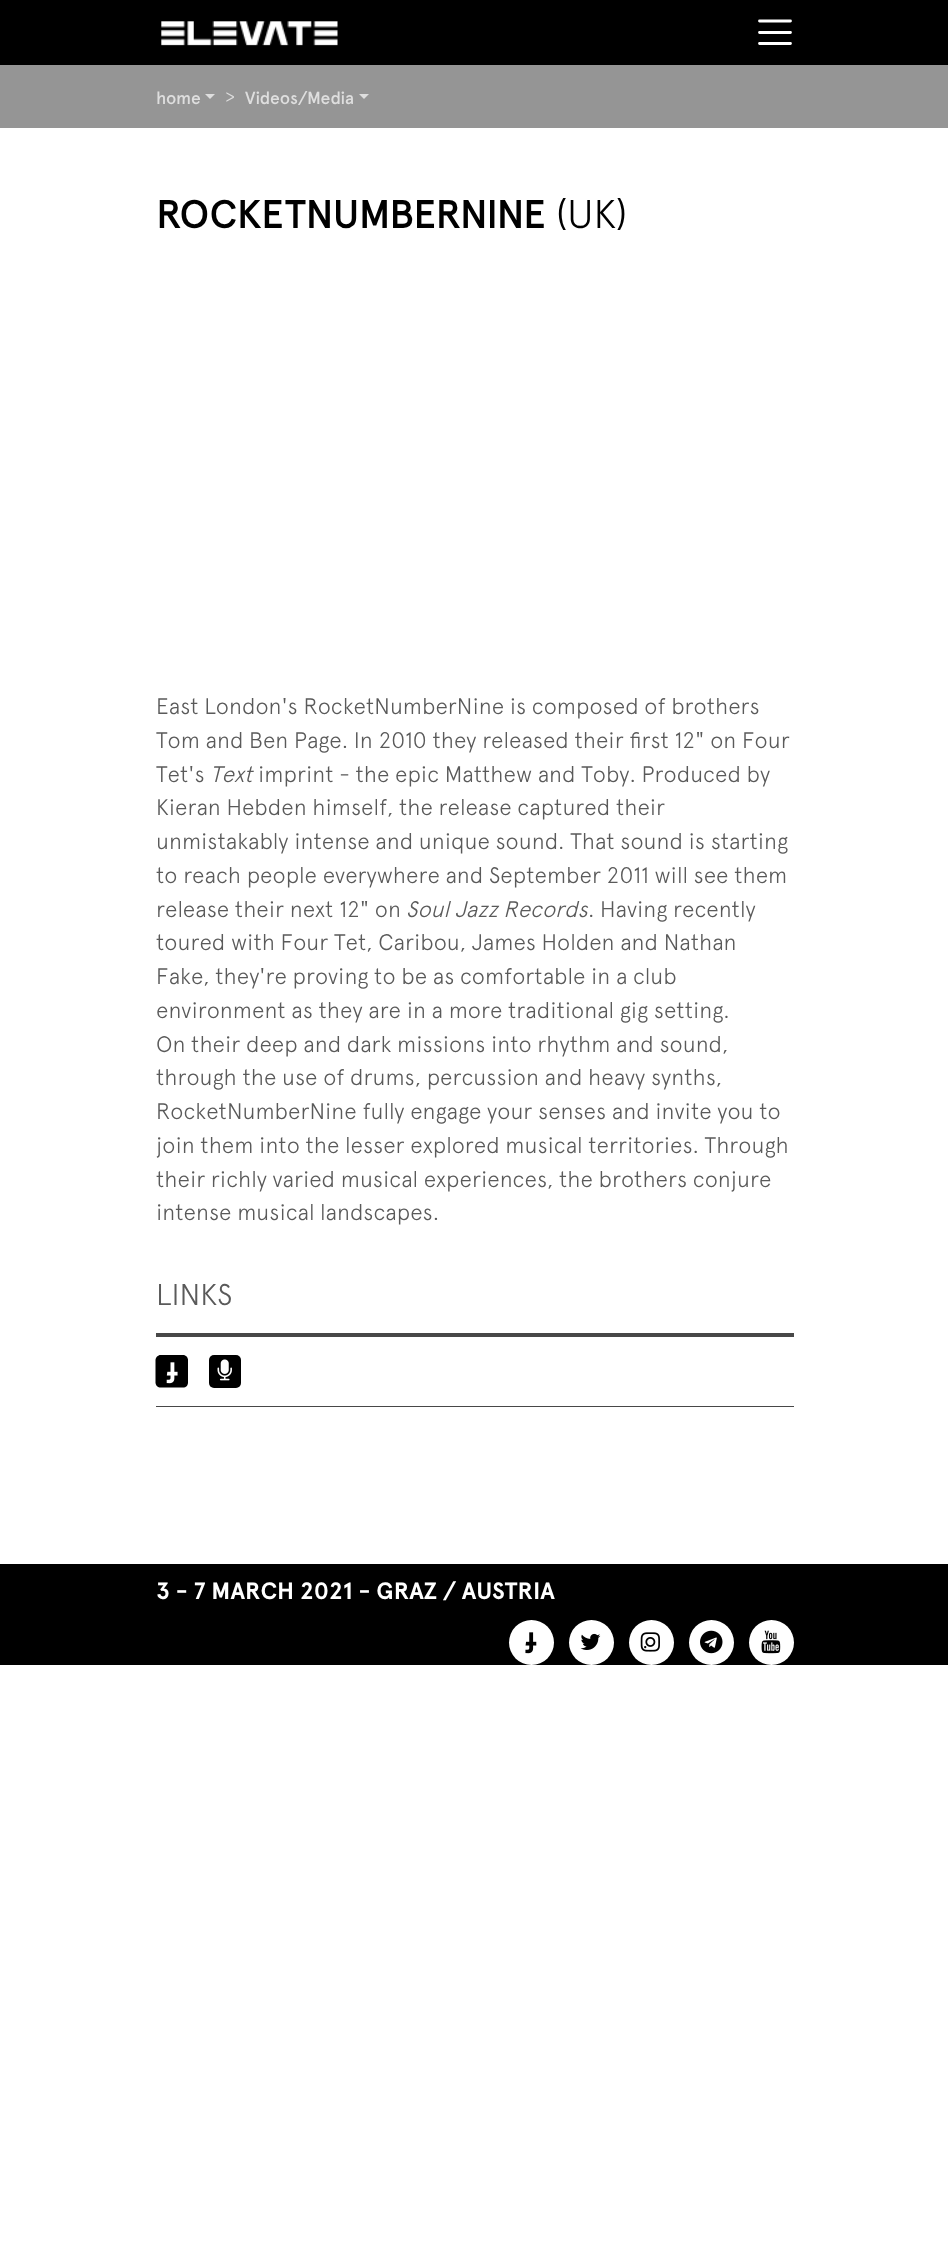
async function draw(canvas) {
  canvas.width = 948;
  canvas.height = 2259;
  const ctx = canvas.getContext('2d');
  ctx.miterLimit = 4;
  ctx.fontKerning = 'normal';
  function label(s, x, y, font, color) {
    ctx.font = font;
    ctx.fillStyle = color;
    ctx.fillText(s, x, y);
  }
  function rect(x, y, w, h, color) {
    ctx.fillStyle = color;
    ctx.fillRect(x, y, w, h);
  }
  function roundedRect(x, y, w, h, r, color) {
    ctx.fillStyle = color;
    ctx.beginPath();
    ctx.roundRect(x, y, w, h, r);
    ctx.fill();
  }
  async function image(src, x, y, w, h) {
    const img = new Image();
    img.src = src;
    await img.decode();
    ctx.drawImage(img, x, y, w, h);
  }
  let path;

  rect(0, 0, 948, 2259, '#fff');
  rect(0, 0, 948, 65, '#000');
  await image('assets/img1.png', 161, 21, 177, 25);
  path = new Path2D('M759.5 21H790.5M759.5 32.5H790.5M759.5 43.5H790.5');
  ctx.strokeStyle = '#fff';
  ctx.lineWidth = 2.8;
  ctx.lineCap = 'round';
  ctx.stroke(path);
  rect(0, 65, 948, 63, '#959595');
  label('home', 156, 104, '500 17.5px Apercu', '#dedede');
  path = new Path2D('M205 94H215L210 99Z');
  ctx.fill(path);
  label('>', 225, 104, '300 22.5px Apercu', '#dedede');
  label('Videos/Media', 245, 104, '500 17.5px Apercu', '#dedede');
  path = new Path2D('M359 94H369L364 99Z');
  ctx.fill(path);
  label('ROCKETNUMBERNINE', 156, 228, '500 40px Apercu', '#000');
  label('(UK)', 556, 228, '300 40px Apercu', '#000');
  label('East London\'s RocketNumberNine is composed of brothers', 156, 714, '300 22.5px Apercu', '#5a5a5a');
  label('Tom and Ben Page. In 2010 they released their first 12" on Four', 156, 748, '300 22.5px Apercu', '#5a5a5a');
  label('Tet\'s', 156, 782, '300 22.5px Apercu', '#5a5a5a');
  label('Text', 210, 782, 'italic 300 22.5px Apercu', '#5a5a5a');
  label('imprint - the epic Matthew and Toby. Produced by', 258, 782, '300 22.5px Apercu', '#5a5a5a');
  label('Kieran Hebden himself, the release captured their', 156, 815, '300 22.5px Apercu', '#5a5a5a');
  label('unmistakably intense and unique sound. That sound is starting', 156, 849, '300 22.5px Apercu', '#5a5a5a');
  label('to reach people everywhere and September 2011 will see them', 156, 883, '300 22.5px Apercu', '#5a5a5a');
  label('release their next 12" on', 156, 917, '300 22.5px Apercu', '#5a5a5a');
  label('Soul Jazz Records', 406, 917, 'italic 300 22.5px Apercu', '#5a5a5a');
  label('. Having recently', 588, 917, '300 22.5px Apercu', '#5a5a5a');
  label('toured with Four Tet, Caribou, James Holden and Nathan', 156, 950, '300 22.5px Apercu', '#5a5a5a');
  label('Fake, they\'re proving to be as comfortable in a club', 156, 984, '300 22.5px Apercu', '#5a5a5a');
  label('environment as they are in a more traditional gig setting.', 156, 1018, '300 22.5px Apercu', '#5a5a5a');
  label('On their deep and dark missions into rhythm and sound,', 156, 1052, '300 22.5px Apercu', '#5a5a5a');
  label('through the use of drums, percussion and heavy synths,', 156, 1085, '300 22.5px Apercu', '#5a5a5a');
  label('RocketNumberNine fully engage your senses and invite you to', 156, 1119, '300 22.5px Apercu', '#5a5a5a');
  label('join them into the lesser explored musical territories. Through', 156, 1153, '300 22.5px Apercu', '#5a5a5a');
  label('their richly varied musical experiences, the brothers conjure', 156, 1187, '300 22.5px Apercu', '#5a5a5a');
  label('intense musical landscapes.', 156, 1220, '300 22.5px Apercu', '#5a5a5a');
  rect(156, 1333, 638, 4, '#484848');
  label('LINKS', 156, 1305, '300 30px Apercu', '#5a5a5a');
  rect(156, 1406, 638, 1, '#484848');
  ctx.fillStyle = '#000';
  path = new Path2D('M183 1387.5H160.5C158 1387.5 155.5 1385.5 155.5 1382.5V1360C155.5 1357.5 158 1355 160.5 1355H183C186 1355 188 1357.5 188 1360V1382.5C188 1385.5 186 1387.5 183 1387.5Z');
  ctx.fill(path);
  await image('assets/img2.png', 166, 1362, 12, 22);
  roundedRect(209, 1355, 32, 33, 5, '#000');
  await image('assets/img3.png', 217, 1359, 15, 22);
  rect(0, 1564, 948, 101, '#000');
  label('3 - 7 MARCH 2021 - GRAZ / AUSTRIA', 156, 1599, 'bold 23.75px Apercu', '#fff');
  ctx.beginPath();
  ctx.arc(531.5, 1642.5, 22.5, 0, 2 * Math.PI);
  ctx.fill();
  await image('assets/img4.png', 525, 1632, 12, 22);
  ctx.beginPath();
  ctx.arc(591.5, 1642.5, 22.5, 0, 2 * Math.PI);
  ctx.fill();
  await image('assets/img5.png', 580, 1633, 21, 17);
  ctx.beginPath();
  ctx.arc(651.5, 1642.5, 22.5, 0, 2 * Math.PI);
  ctx.fill();
  await image('assets/img6.png', 640, 1632, 20, 20);
  ctx.beginPath();
  ctx.arc(711.5, 1642.5, 22.5, 0, 2 * Math.PI);
  ctx.fill();
  await image('assets/img7.png', 700, 1630, 23, 24);
  ctx.beginPath();
  ctx.arc(771.5, 1642.5, 22.5, 0, 2 * Math.PI);
  ctx.fill();
  await image('assets/img8.png', 761, 1630, 20, 24);
}

draw(document.querySelector('canvas'));
